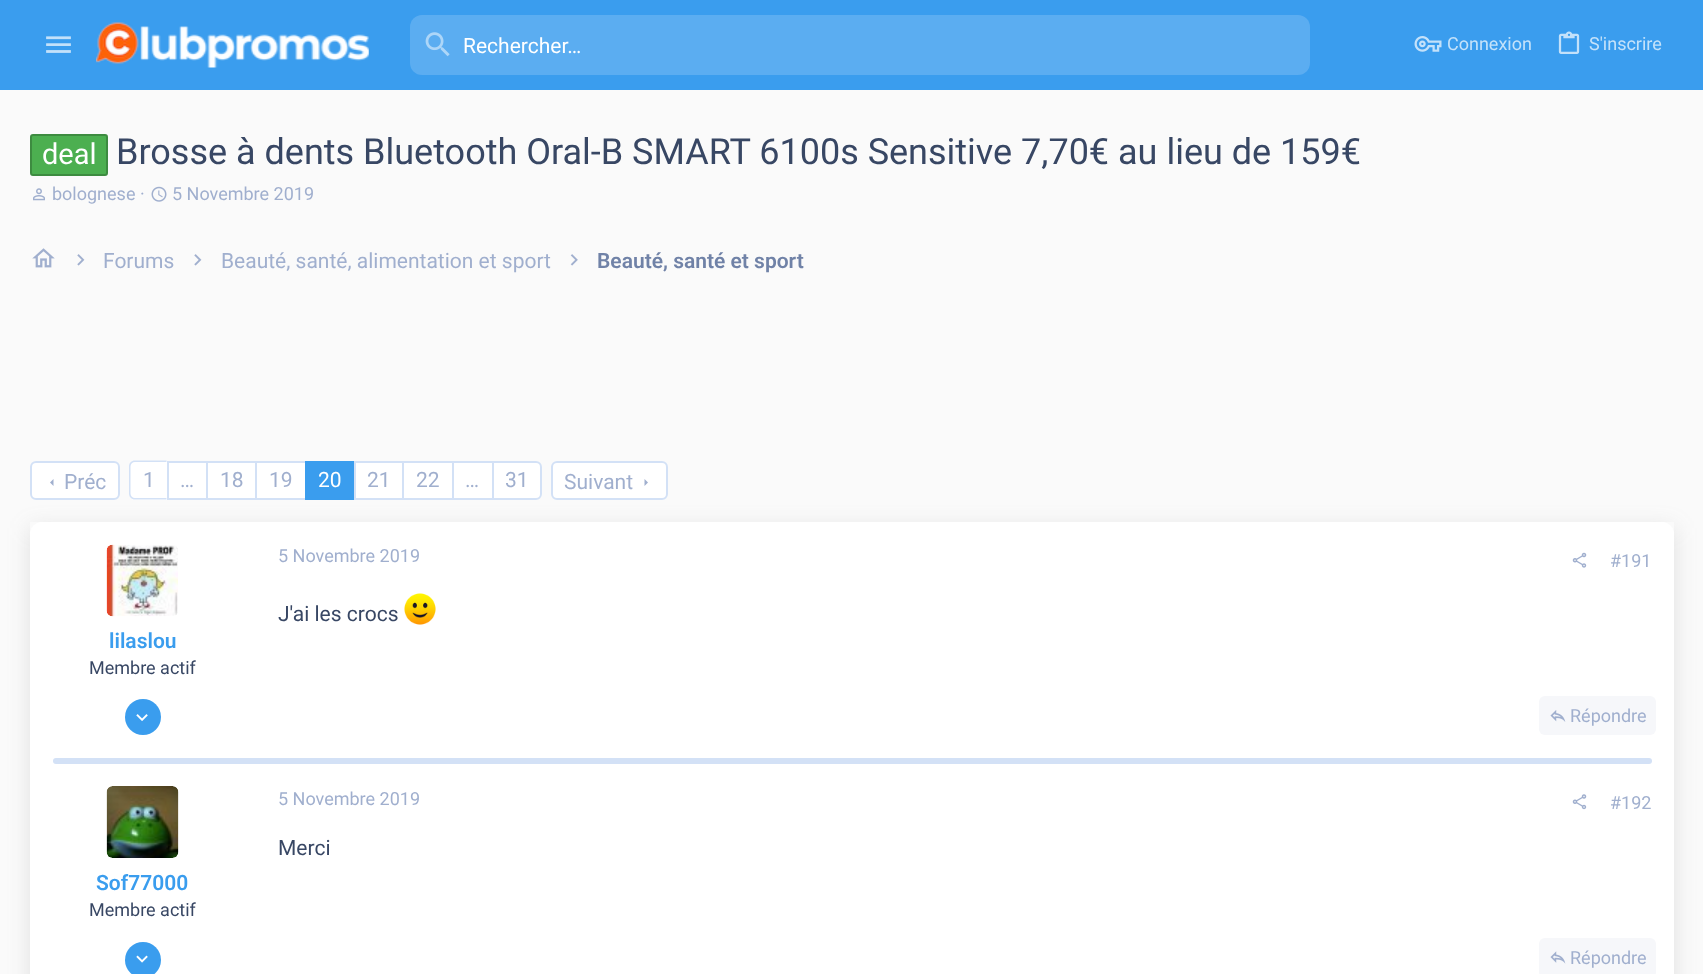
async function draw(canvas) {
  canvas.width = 1703;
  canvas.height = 974;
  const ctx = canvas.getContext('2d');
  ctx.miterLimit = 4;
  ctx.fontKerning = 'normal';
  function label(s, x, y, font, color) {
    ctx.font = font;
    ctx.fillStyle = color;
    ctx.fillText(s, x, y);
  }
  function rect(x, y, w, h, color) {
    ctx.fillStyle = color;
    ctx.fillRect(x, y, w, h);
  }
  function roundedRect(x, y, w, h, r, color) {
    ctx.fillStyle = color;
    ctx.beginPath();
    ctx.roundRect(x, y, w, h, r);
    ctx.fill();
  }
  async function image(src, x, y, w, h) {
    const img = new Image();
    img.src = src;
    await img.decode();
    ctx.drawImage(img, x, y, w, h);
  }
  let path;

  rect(0, 0, 1703, 974, '#fafafa');
  rect(0, 0, 1703, 90, '#3a9dee');
  await image('assets/img1.png', 46, 36, 25, 17);
  await image('assets/img2.png', 96, 22, 273, 46);
  roundedRect(410, 15, 900, 60, 12, '#5badf1');
  await image('assets/img3.png', 425, 32, 25, 25);
  label('Rechercher…', 463, 53, '21px Roboto', '#fff');
  await image('assets/img4.png', 1414, 36, 28, 16);
  label('Connexion', 1447, 50, '18px Roboto', '#c4e2fa');
  await image('assets/img5.png', 1558, 31, 22, 23);
  label('S\'inscrire', 1589, 50, '18px Roboto', '#c4e2fa');
  ctx.fillStyle = '#4caf50';
  ctx.beginPath();
  ctx.roundRect(31, 135, 76, 40, 2);
  ctx.fill();
  ctx.strokeStyle = '#3d8b40';
  ctx.lineWidth = 2;
  ctx.stroke();
  label('deal', 42, 164, '29px Roboto', '#fff');
  label('Brosse à dents Bluetooth Oral-B SMART 6100s Sensitive 7,70€ au lieu de 159€', 116, 164, '36px Roboto', '#384764');
  await image('assets/img6.png', 33, 188, 12, 13);
  label('bolognese ·', 52, 200, '18px Roboto', '#a0afce');
  await image('assets/img7.png', 151, 186, 16, 16);
  label('5 Novembre 2019', 172, 200, '18px Roboto', '#a0afce');
  await image('assets/img8.png', 32, 248, 23, 20);
  await image('assets/img9.png', 77, 254, 8, 12);
  label('Forums', 103, 268, '21px Roboto', '#a0afce');
  await image('assets/img9.png', 194, 254, 8, 12);
  label('Beauté, santé, alimentation et sport', 221, 268, '21px Roboto', '#a0afce');
  await image('assets/img10.png', 570, 254, 8, 12);
  label('Beauté, santé et sport', 597, 268, '600 21px Roboto', '#7082a7');
  ctx.save();
  path = new Path2D('M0 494H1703V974H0ZM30 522H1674V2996H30Z');
  ctx.clip(path, 'evenodd');
  ctx.fillStyle = '#77777733';
  ctx.filter = 'blur(11px)';
  ctx.beginPath();
  ctx.rect(30, 528, 1644, 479);
  ctx.fill();
  ctx.filter = 'none';
  ctx.restore();
  ctx.fillStyle = '#fff';
  ctx.beginPath();
  ctx.roundRect(31, 462, 88, 37, 5);
  ctx.fill();
  ctx.strokeStyle = '#d3e1f6';
  ctx.stroke();
  ctx.fillStyle = '#a0afce';
  path = new Path2D('M53.5 479L50 482.5L53.5 486Z');
  ctx.fill(path);
  label('Préc', 64, 489, '21px Roboto', '#a0afce');
  ctx.fillStyle = '#fff';
  ctx.beginPath();
  ctx.roundRect(129, 461, 38, 39, [6, 0, 0, 6]);
  ctx.fill();
  ctx.fillStyle = '#d3e1f6';
  path = new Path2D('M135 460.5H166.5V499.5H135C131.5 499.5 129 497 129 493.5V466.5C129 463 131.5 460.5 135 460.5ZM135 462H166.5V498H135C132.5 498 130.5 496 130.5 493.5V466.5C130.5 464 132.5 462 135 462Z');
  ctx.fill(path, 'evenodd');
  label('1', 143, 487, '21px Roboto', '#a0afce');
  rect(169, 463, 37, 35, '#fff');
  rect(167, 461, 138, 2, '#d3e1f6');
  rect(167, 498, 138, 2, '#d3e1f6');
  rect(167, 461, 2, 39, '#d3e1f6');
  label('…', 180, 487, '21px Roboto', '#a0afce');
  rect(208, 463, 47, 35, '#fff');
  rect(206, 461, 2, 39, '#d3e1f6');
  label('18', 220, 487, '21px Roboto', '#a0afce');
  rect(257, 463, 48, 35, '#fff');
  rect(255, 461, 2, 39, '#d3e1f6');
  label('19', 269, 487, '21px Roboto', '#a0afce');
  rect(305, 461, 49, 39, '#3a9dee');
  label('20', 318, 487, '21px Roboto', '#fff');
  rect(356, 463, 46, 35, '#fff');
  rect(354, 461, 138, 2, '#d3e1f6');
  rect(354, 498, 138, 2, '#d3e1f6');
  rect(354, 461, 2, 39, '#d3e1f6');
  label('21', 367, 487, '21px Roboto', '#a0afce');
  rect(404, 463, 48, 35, '#fff');
  rect(402, 461, 2, 39, '#d3e1f6');
  label('22', 416, 487, '21px Roboto', '#a0afce');
  rect(454, 463, 38, 35, '#fff');
  rect(452, 461, 2, 39, '#d3e1f6');
  label('…', 465, 487, '21px Roboto', '#a0afce');
  ctx.fillStyle = '#fff';
  ctx.beginPath();
  ctx.roundRect(493, 462, 48, 37, [0, 5, 5, 0]);
  ctx.fill();
  ctx.stroke();
  label('31', 505, 487, '21px Roboto', '#a0afce');
  ctx.fillStyle = '#fff';
  ctx.beginPath();
  ctx.roundRect(552, 462, 115, 37, 5);
  ctx.fill();
  ctx.stroke();
  label('Suivant', 564, 489, '21px Roboto', '#a0afce');
  path = new Path2D('M644.5 486L648 482.5L644.5 479Z');
  ctx.fill(path);
  ctx.fillStyle = '#fff';
  ctx.beginPath();
  ctx.roundRect(30, 522, 1644, 242, [12, 12, 0, 0]);
  ctx.fill();
  await image('assets/img11.png', 106, 544, 72, 73);
  label('lilaslou', 109, 648, '600 21px Roboto', '#3a9dee');
  label('Membre actif', 89, 674, '18px Roboto', '#384764');
  ctx.fillStyle = '#3a9dee';
  ctx.beginPath();
  ctx.arc(143, 717, 18, 0, 2 * Math.PI);
  ctx.fill();
  await image('assets/img12.png', 136, 714, 12, 7);
  label('5 Novembre 2019', 278, 562, '18px Roboto', '#a0afce');
  await image('assets/img13.png', 1572, 552, 15, 16);
  label('#191', 1610, 567, '18px Roboto', '#a0afce');
  label('J\'ai les crocs', 278, 621, '21px Roboto', '#384764');
  await image('assets/img14.png', 404, 593, 32, 32);
  roundedRect(1539, 696, 117, 39, 6, '#f6f7fa');
  await image('assets/img15.png', 1550, 710, 16, 12);
  label('Répondre', 1570, 722, '18px Roboto', '#a0afce');
  roundedRect(53, 758, 1599, 6, 3, '#d3e1f6');
  rect(30, 764, 1644, 210, '#fff');
  await image('assets/img16.png', 106, 786, 73, 72);
  label('Sof77000', 96, 890, '600 21px Roboto', '#3a9dee');
  label('Membre actif', 89, 916, '18px Roboto', '#384764');
  ctx.fillStyle = '#3a9dee';
  ctx.beginPath();
  ctx.arc(143, 960, 18, 0, 2 * Math.PI);
  ctx.fill();
  await image('assets/img17.png', 136, 955, 12, 8);
  label('5 Novembre 2019', 278, 805, '18px Roboto', '#a0afce');
  await image('assets/img18.png', 1572, 794, 15, 16);
  label('#192', 1610, 809, '18px Roboto', '#a0afce');
  label('Merci', 278, 855, '21px Roboto', '#384764');
  roundedRect(1539, 938, 117, 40, 6, '#f6f7fa');
  await image('assets/img19.png', 1550, 951, 16, 13);
  label('Répondre', 1570, 964, '18px Roboto', '#a0afce');
}

draw(document.querySelector('canvas'));
